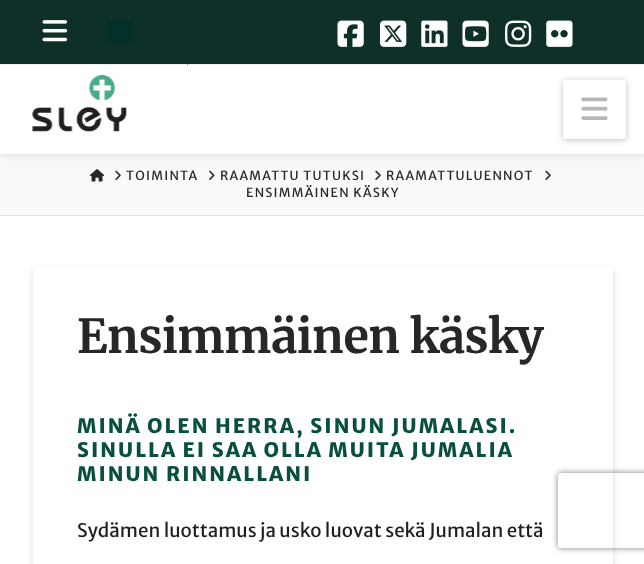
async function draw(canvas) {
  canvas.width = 644;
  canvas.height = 564;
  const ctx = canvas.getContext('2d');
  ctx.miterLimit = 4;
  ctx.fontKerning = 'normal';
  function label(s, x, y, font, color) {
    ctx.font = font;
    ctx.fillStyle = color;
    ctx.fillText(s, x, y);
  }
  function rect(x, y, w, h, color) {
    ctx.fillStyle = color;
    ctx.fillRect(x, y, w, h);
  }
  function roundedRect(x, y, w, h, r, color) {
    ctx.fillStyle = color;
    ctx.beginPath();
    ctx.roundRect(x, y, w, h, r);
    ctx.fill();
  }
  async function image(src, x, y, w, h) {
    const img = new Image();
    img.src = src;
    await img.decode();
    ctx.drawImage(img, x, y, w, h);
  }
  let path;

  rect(0, 0, 644, 564, '#fff');
  rect(0, 154, 644, 61, '#f9f9f9');
  ctx.fillStyle = '#0000001a';
  ctx.filter = 'blur(3.5px)';
  ctx.beginPath();
  ctx.rect(0, 59, 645, 97);
  ctx.fill();
  ctx.filter = 'none';
  rect(0, 0, 644, 64, '#0e3028');
  rect(0, 64, 644, 1, '#f2f2f2');
  rect(187, 64, 1, 1, '#80918d');
  await image('assets/img1.png', 42, 20, 26, 22);
  ctx.fillStyle = '#033028';
  ctx.beginPath();
  ctx.roundRect(106, 20, 28, 24, [0, 0, 5, 5]);
  ctx.fill();
  await image('assets/img2.png', 337, 20, 27, 27);
  await image('assets/img3.png', 380, 20, 27, 27);
  await image('assets/img4.png', 421, 20, 27, 27);
  await image('assets/img5.png', 462, 20, 27, 27);
  await image('assets/img6.png', 505, 20, 27, 27);
  await image('assets/img7.png', 546, 20, 27, 27);
  rect(0, 65, 644, 89, '#fff');
  await image('assets/img8.png', 32, 75, 95, 57);
  ctx.fillStyle = '#00000040';
  ctx.filter = 'blur(3px)';
  ctx.beginPath();
  ctx.roundRect(563, 81, 63, 59, 2.5);
  ctx.fill();
  ctx.filter = 'none';
  roundedRect(563, 80, 63, 59, 2.5, '#fff');
  await image('assets/img9.png', 581, 97, 27, 23);
  rect(0, 215, 644, 1, '#e0e0e0');
  await image('assets/img10.png', 90, 169, 14, 13);
  await image('assets/img11.png', 115, 170, 6, 10);
  ctx.letterSpacing = '1.25px';
  label('TOIMINTA', 126, 180, '12.5px Merriweather Sans', '#272727');
  await image('assets/img12.png', 209, 170, 6, 10);
  label('RAAMATTU TUTUKSI', 220, 180, '12.5px Merriweather Sans', '#272727');
  await image('assets/img11.png', 375, 170, 6, 10);
  label('RAAMATTULUENNOT', 386, 180, '12.5px Merriweather Sans', '#272727');
  await image('assets/img11.png', 545, 170, 6, 10);
  label('ENSIMMÄINEN KÄSKY', 246, 197, '12.5px Merriweather Sans', '#272727');
  ctx.fillStyle = '#00000021';
  ctx.filter = 'blur(3.5px)';
  ctx.beginPath();
  ctx.rect(33, 269, 580, 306);
  ctx.fill();
  ctx.filter = 'none';
  rect(33, 266, 580, 298, '#fff');
  ctx.letterSpacing = '-0.75px';
  label('Ensimmäinen käsky', 77, 353, 'bold 46.9px Merriweather', '#272727');
  ctx.letterSpacing = '2px';
  label('MINÄ OLEN HERRA, SINUN JUMALASI.', 77, 433, '800 20px Merriweather Sans', '#084f3f');
  label('SINULLA EI SAA OLLA MUITA JUMALIA', 77, 457, '800 20px Merriweather Sans', '#084f3f');
  label('MINUN RINNALLANI', 77, 481, '800 20px Merriweather Sans', '#084f3f');
  ctx.letterSpacing = '0px';
  label('Sydämen luottamus ja usko luovat sekä Jumalan että', 77, 537, '18.75px Merriweather Sans', '#1f1f1f');
  ctx.save();
  path = new Path2D('M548 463H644V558H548ZM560.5 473H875.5C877 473 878 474 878 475.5V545.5C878 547 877 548 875.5 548H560.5C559 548 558 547 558 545.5V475.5C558 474 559 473 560.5 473Z');
  ctx.clip(path, 'evenodd');
  ctx.fillStyle = '#808080';
  ctx.filter = 'blur(3px)';
  ctx.beginPath();
  ctx.roundRect(558, 473, 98, 75, 2.5);
  ctx.fill();
  ctx.filter = 'none';
  ctx.restore();
}

draw(document.querySelector('canvas'));
